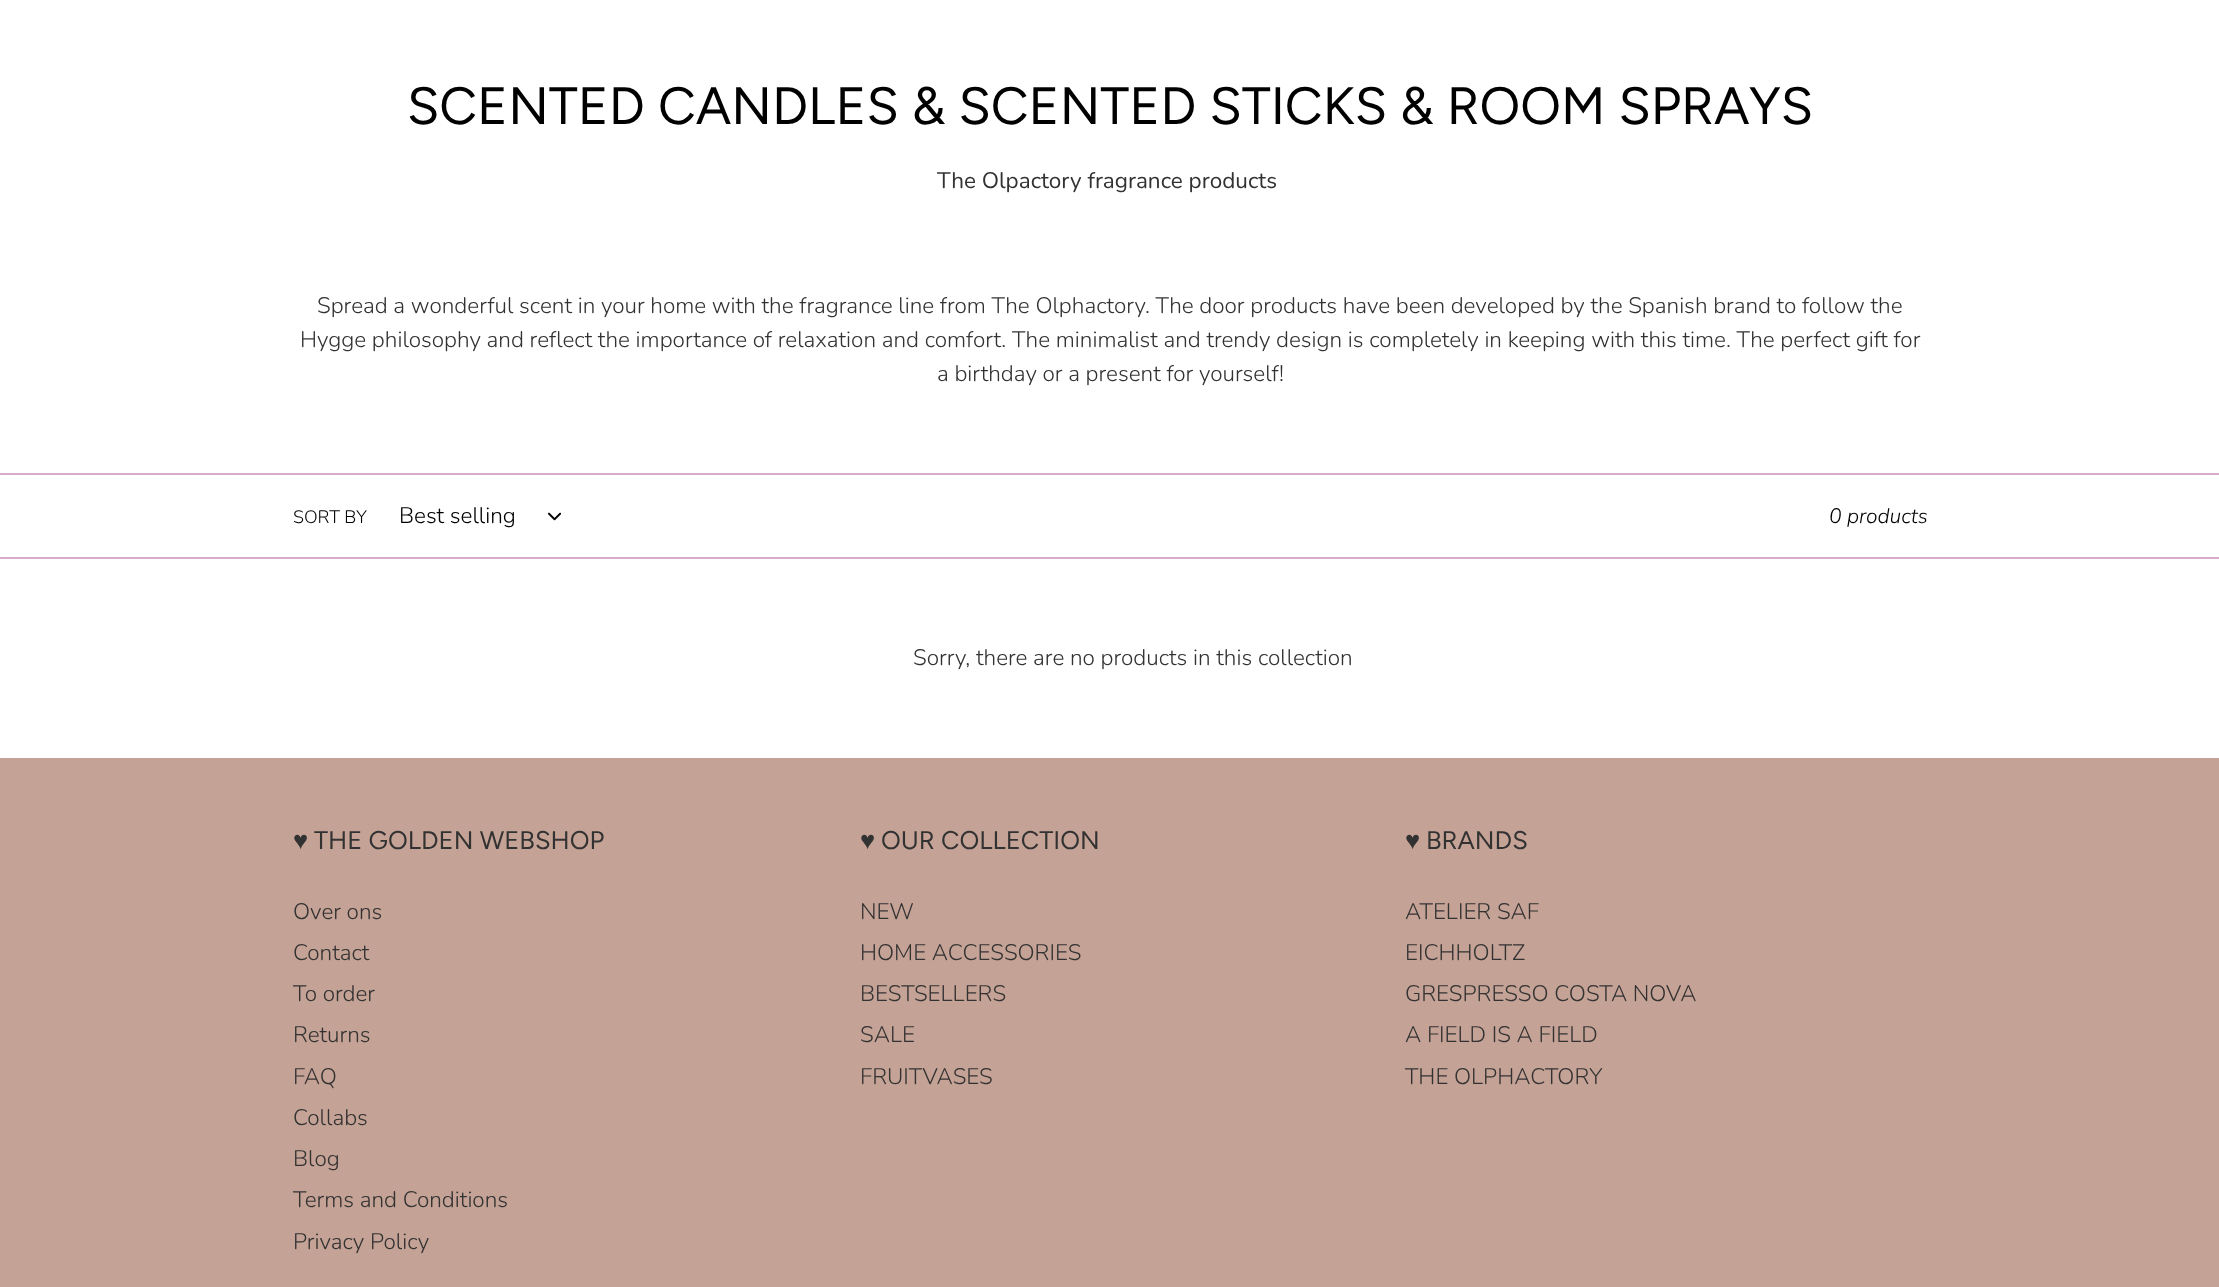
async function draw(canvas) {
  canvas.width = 2219;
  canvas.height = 1287;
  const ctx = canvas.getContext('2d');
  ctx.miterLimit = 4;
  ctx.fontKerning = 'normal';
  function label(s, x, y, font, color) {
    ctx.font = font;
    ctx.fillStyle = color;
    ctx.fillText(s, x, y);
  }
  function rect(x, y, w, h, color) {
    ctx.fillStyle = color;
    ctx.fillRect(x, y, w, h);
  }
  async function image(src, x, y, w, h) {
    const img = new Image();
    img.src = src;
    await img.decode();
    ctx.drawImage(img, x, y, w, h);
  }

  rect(0, 0, 2219, 1287, '#fff');
  label('SCENTED CANDLES & SCENTED STICKS & ROOM SPRAYS', 407, 124, '52.5px Figtree', '#000');
  label('The Olpactory fragrance products', 937, 188, '22.5px Nunito', '#333232');
  label('Spread a wonderful scent in your home with the fragrance line from The Olphactory. The door products have been developed by the Spanish brand to follow the', 317, 313, '300 22.5px Nunito', '#333232');
  label('Hygge philosophy and reflect the importance of relaxation and comfort. The minimalist and trendy design is completely in keeping with this time. The perfect gift for', 300, 347, '300 22.5px Nunito', '#333232');
  label('a birthday or a present for yourself!', 937, 381, '300 22.5px Nunito', '#333232');
  rect(0, 473, 2219, 2, '#d7abcc');
  rect(0, 557, 2219, 2, '#d7abcc');
  label('SORT BY', 293, 523, '300 18px Nunito', '#000');
  label('Best selling', 399, 523, '300 22.5px Nunito', '#000');
  await image('assets/img1.png', 548, 512, 13, 9);
  label('0 products', 1829, 523, 'italic 300 21px Nunito', '#000');
  label('Sorry, there are no products in this collection', 913, 665, '300 22.5px Nunito', '#333232');
  rect(0, 758, 2219, 529, '#c4a295');
  label('♥', 293, 849, '25.5px Liberation Sans', '#333232');
  label('THE GOLDEN WEBSHOP', 314, 849, '25.5px Figtree', '#333232');
  label('Over ons', 293, 919, '300 22.5px Nunito', '#333232');
  label('Contact', 293, 960, '300 22.5px Nunito', '#333232');
  label('To order', 293, 1001, '300 22.5px Nunito', '#333232');
  label('Returns', 293, 1042, '300 22.5px Nunito', '#333232');
  label('FAQ', 293, 1084, '300 22.5px Nunito', '#333232');
  label('Collabs', 293, 1125, '300 22.5px Nunito', '#333232');
  label('Blog', 293, 1166, '300 22.5px Nunito', '#333232');
  label('Terms and Conditions', 293, 1207, '300 22.5px Nunito', '#333232');
  label('Privacy Policy', 293, 1249, '300 22.5px Nunito', '#333232');
  label('♥', 860, 849, '25.5px Liberation Sans', '#333232');
  label('OUR COLLECTION', 881, 849, '25.5px Figtree', '#333232');
  label('NEW', 860, 919, '300 22.5px Nunito', '#333232');
  label('HOME ACCESSORIES', 860, 960, '300 22.5px Nunito', '#333232');
  label('BESTSELLERS', 860, 1001, '300 22.5px Nunito', '#333232');
  label('SALE', 860, 1042, '300 22.5px Nunito', '#333232');
  label('FRUITVASES', 860, 1084, '300 22.5px Nunito', '#333232');
  label('♥', 1405, 849, '25.5px Liberation Sans', '#333232');
  label('BRANDS', 1426, 849, '25.5px Figtree', '#333232');
  label('ATELIER SAF', 1405, 919, '300 22.5px Nunito', '#333232');
  label('EICHHOLTZ', 1405, 960, '300 22.5px Nunito', '#333232');
  label('GRESPRESSO COSTA NOVA', 1405, 1001, '300 22.5px Nunito', '#333232');
  label('A FIELD IS A FIELD', 1405, 1042, '300 22.5px Nunito', '#333232');
  label('THE OLPHACTORY', 1405, 1084, '300 22.5px Nunito', '#333232');
}

draw(document.querySelector('canvas'));
